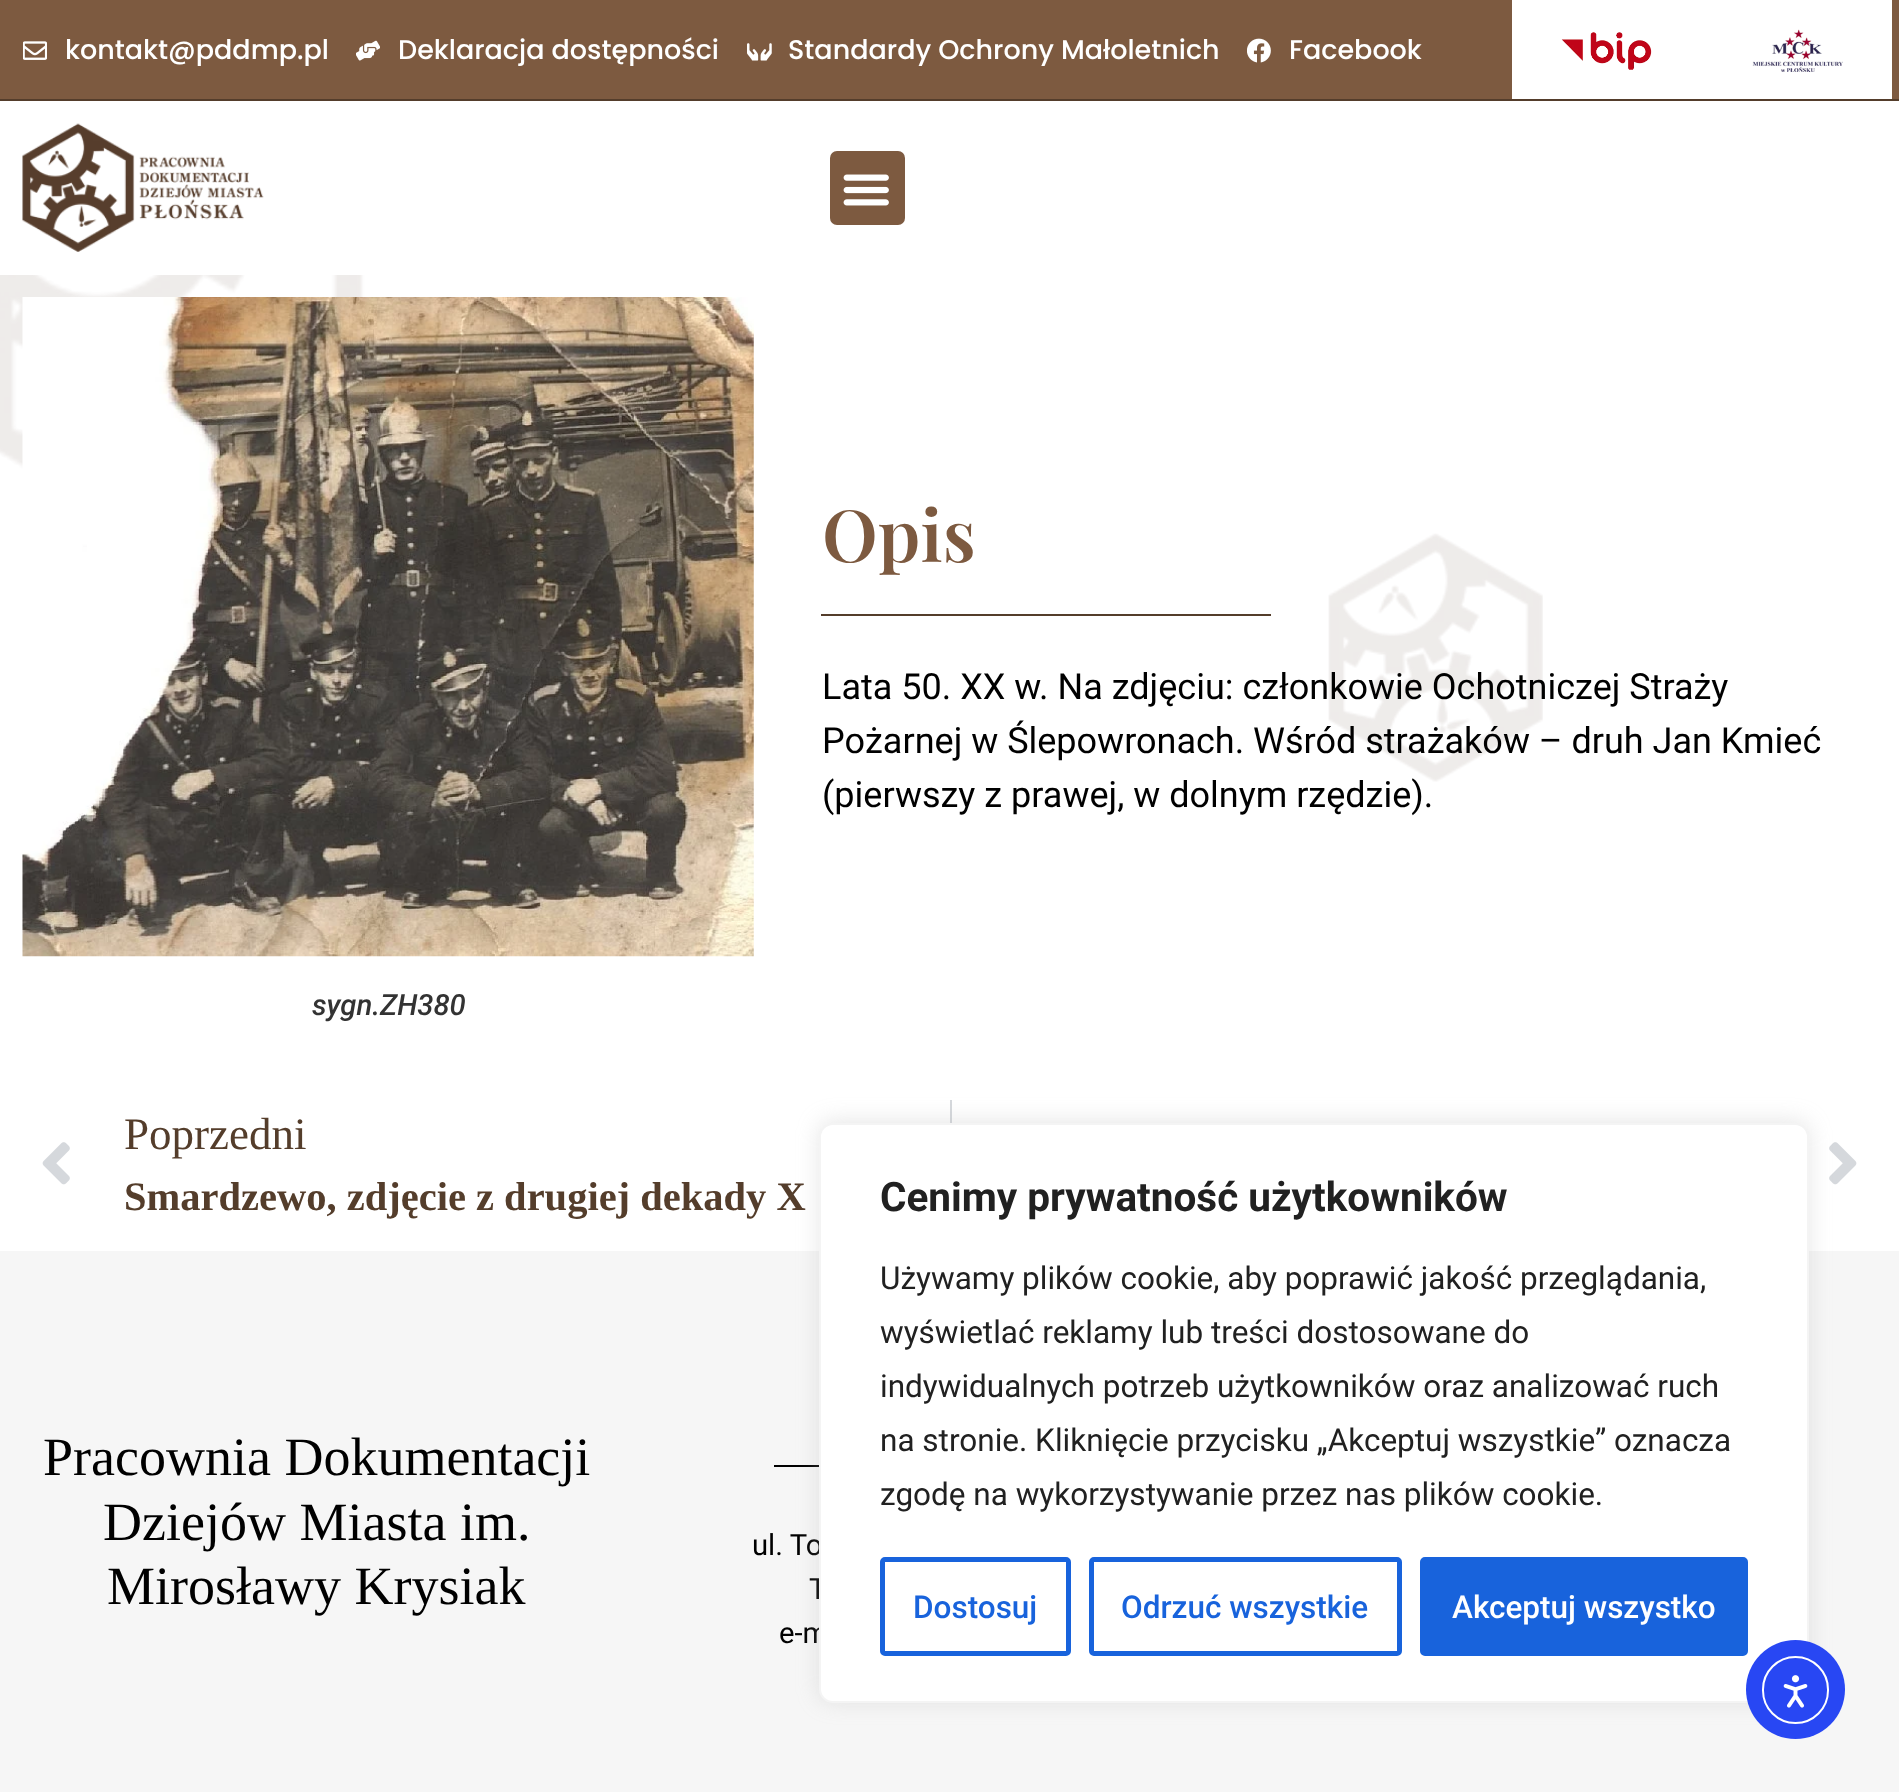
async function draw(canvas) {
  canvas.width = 1899;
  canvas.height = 1792;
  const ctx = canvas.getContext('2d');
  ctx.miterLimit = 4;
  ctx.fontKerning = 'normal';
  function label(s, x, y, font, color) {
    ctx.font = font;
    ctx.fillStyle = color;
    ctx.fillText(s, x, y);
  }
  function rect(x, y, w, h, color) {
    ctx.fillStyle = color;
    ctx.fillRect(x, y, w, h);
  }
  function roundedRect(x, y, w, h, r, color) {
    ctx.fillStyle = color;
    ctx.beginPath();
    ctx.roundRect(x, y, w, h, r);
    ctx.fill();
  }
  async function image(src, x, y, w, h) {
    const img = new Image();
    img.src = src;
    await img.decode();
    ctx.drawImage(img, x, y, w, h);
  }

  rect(0, 0, 1899, 1792, '#fff');
  await image('assets/img1.png', 0, 275, 1543, 507);
  rect(0, 0, 1899, 99, '#7d5a40');
  rect(0, 99, 1899, 2, '#543d2b');
  rect(1512, 0, 380, 99, '#fff');
  await image('assets/img2.png', 1561, 32, 91, 38);
  await image('assets/img3.png', 23, 41, 24, 19);
  label('kontakt@pddmp.pl', 65, 59, '500 27px Poppins', '#fff');
  await image('assets/img4.png', 356, 40, 24, 21);
  label('Deklaracja dostępności', 398, 59, '500 27px Poppins', '#fff');
  await image('assets/img5.png', 747, 43, 25, 18);
  label('Standardy Ochrony Małoletnich', 788, 59, '500 27px Poppins', '#fff');
  await image('assets/img6.png', 1247, 38, 24, 25);
  label('Facebook', 1289, 59, '500 27px Poppins', '#fff');
  await image('assets/img7.png', 1752, 29, 91, 43);
  await image('assets/img8.png', 22, 123, 242, 129);
  roundedRect(830, 151, 75, 74, 7, '#7d5a40');
  await image('assets/img9.png', 843, 174, 46, 32);
  label('Opis', 822, 562, '600 72px Playfair Display', '#7d5a40');
  rect(821, 614, 450, 2, '#543d2b');
  label('Lata 50. XX w. Na zdjęciu: członkowie Ochotniczej Straży', 822, 699, '36px Roboto', '#000');
  label('Pożarnej w Ślepowronach. Wśród strażaków – druh Jan Kmieć', 822, 753, '36px Roboto', '#000');
  label('(pierwszy z prawej, w dolnym rzędzie).', 822, 807, '36px Roboto', '#000');
  await image('assets/img10.png', 22, 297, 732, 660);
  label('sygn.ZH380', 312, 1015, 'italic 500 29.25px Roboto', '#333');
  rect(950, 1100, 2, 23, '#d5d8dc');
  await image('assets/img11.png', 42, 1142, 28, 43);
  label('Poprzedni', 124, 1149, '45px Liberation Serif', '#543d2b');
  label('Smardzewo, zdjęcie z drugiej dekady X', 124, 1210, 'bold 40.5px Liberation Serif', '#543d2b');
  await image('assets/img12.png', 1829, 1142, 28, 43);
  rect(0, 1251, 1899, 541, '#f6f6f6');
  label('Pracownia Dokumentacji', 43, 1475, '54px Liberation Serif', '#000');
  label('Dziejów Miasta im.', 103, 1540, '54px Liberation Serif', '#000');
  label('Mirosławy Krysiak', 107, 1604, '54px Liberation Serif', '#000');
  rect(774, 1465, 45, 2, '#000');
  label('ul. To', 752, 1555, '29.25px Roboto', '#000');
  label('T', 809, 1599, '29.25px Roboto', '#000');
  label('e-m', 779, 1643, '29.25px Roboto', '#000');
  ctx.fillStyle = '#acabab4d';
  ctx.filter = 'blur(11px)';
  ctx.beginPath();
  ctx.roundRect(819, 1121, 990, 580, 14);
  ctx.fill();
  ctx.filter = 'none';
  ctx.fillStyle = '#fff';
  ctx.beginPath();
  ctx.roundRect(820, 1124, 988, 578, 13);
  ctx.fill();
  ctx.strokeStyle = '#f4f4f4';
  ctx.lineWidth = 2;
  ctx.stroke();
  label('Cenimy prywatność użytkowników', 880, 1211, 'bold 40.5px Roboto', '#212121');
  label('Używamy plików cookie, aby poprawić jakość przeglądania,', 880, 1289, '31.5px Roboto', '#212121');
  label('wyświetlać reklamy lub treści dostosowane do', 880, 1343, '31.5px Roboto', '#212121');
  label('indywidualnych potrzeb użytkowników oraz analizować ruch', 880, 1397, '31.5px Roboto', '#212121');
  label('na stronie. Kliknięcie przycisku „Akceptuj wszystkie” oznacza', 880, 1451, '31.5px Roboto', '#212121');
  label('zgodę na wykorzystywanie przez nas plików cookie.', 880, 1505, '31.5px Roboto', '#212121');
  ctx.beginPath();
  ctx.roundRect(882.5, 1559.5, 186, 94, 2.5);
  ctx.strokeStyle = '#1863dc';
  ctx.lineWidth = 5;
  ctx.stroke();
  label('Dostosuj', 913, 1618, '500 31.5px Roboto', '#1863dc');
  ctx.beginPath();
  ctx.roundRect(1091.5, 1559.5, 308, 94, 2.5);
  ctx.stroke();
  label('Odrzuć wszystkie', 1121, 1618, '500 31.5px Roboto', '#1863dc');
  ctx.beginPath();
  ctx.roundRect(1422.5, 1559.5, 323, 94, 2.5);
  ctx.fill();
  ctx.stroke();
  label('Akceptuj wszystko', 1452, 1618, '500 31.5px Roboto', '#fff');
  ctx.fillStyle = '#2847f3';
  ctx.beginPath();
  ctx.arc(1795.5, 1689.5, 49.5, 0, 2 * Math.PI);
  ctx.fill();
  ctx.beginPath();
  ctx.roundRect(1763, 1657, 65, 66, 32.5);
  ctx.strokeStyle = '#fff';
  ctx.lineWidth = 2;
  ctx.stroke();
  await image('assets/img13.png', 1783, 1675, 25, 33);
}

draw(document.querySelector('canvas'));
